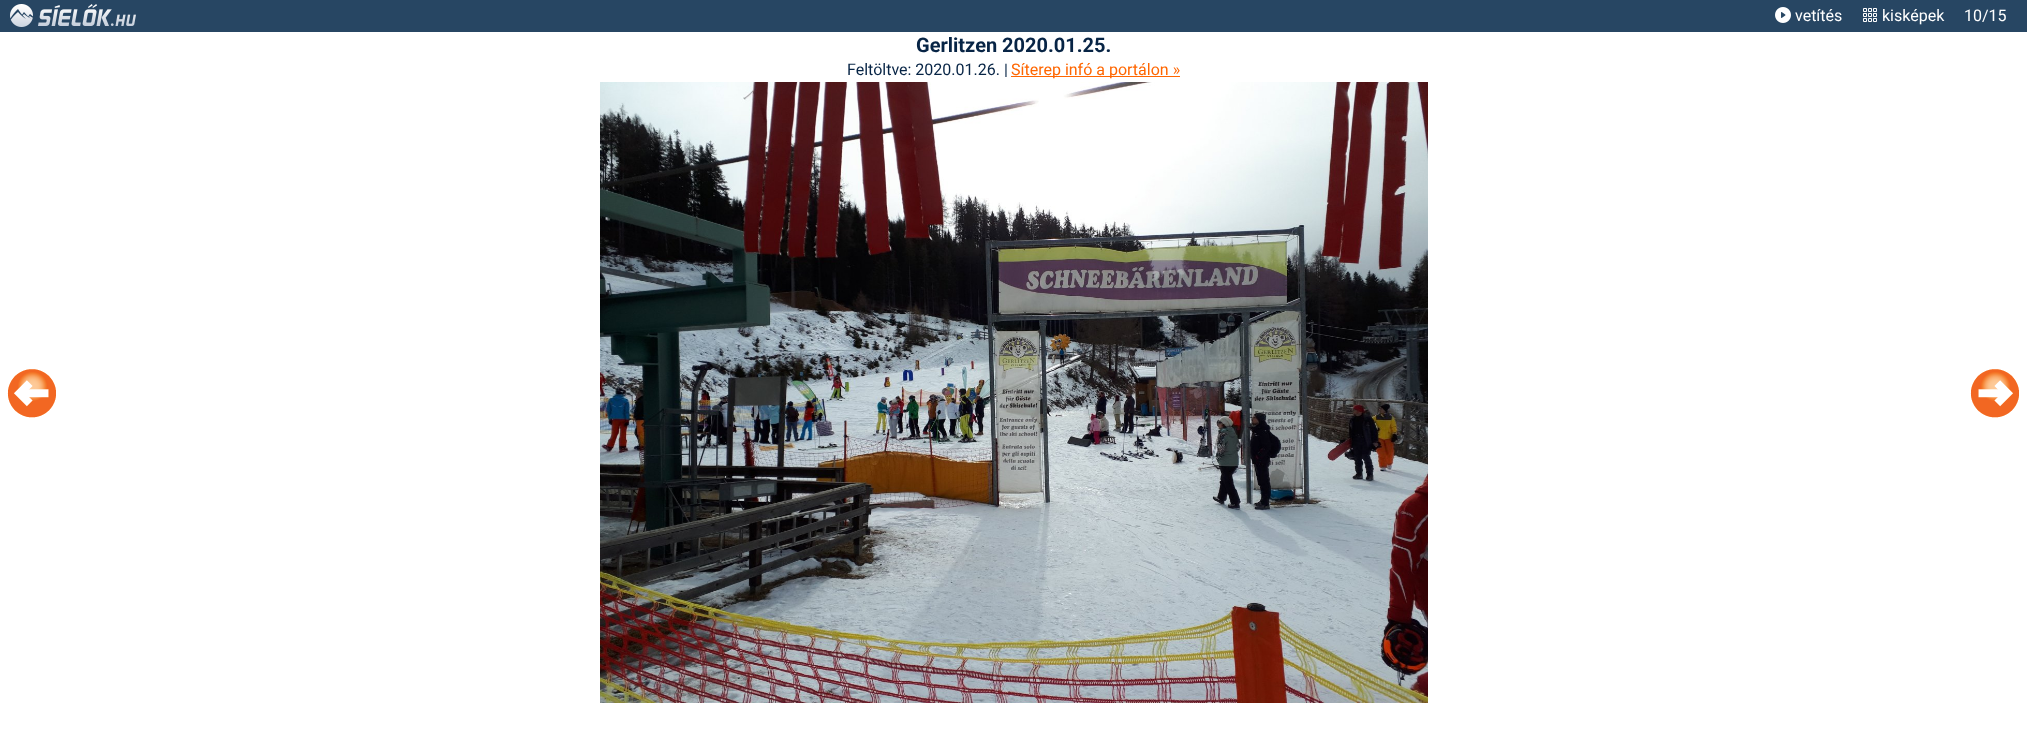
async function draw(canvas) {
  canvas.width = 2027;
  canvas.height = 729;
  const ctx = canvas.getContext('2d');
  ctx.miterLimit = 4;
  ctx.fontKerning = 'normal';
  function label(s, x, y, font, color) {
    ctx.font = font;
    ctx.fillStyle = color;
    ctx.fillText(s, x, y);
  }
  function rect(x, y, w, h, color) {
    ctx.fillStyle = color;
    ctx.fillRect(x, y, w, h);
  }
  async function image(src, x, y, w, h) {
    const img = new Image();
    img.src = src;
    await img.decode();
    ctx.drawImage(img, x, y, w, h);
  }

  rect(0, 0, 2027, 729, '#fff');
  rect(0, 0, 2027, 32, '#274663');
  await image('assets/img1.png', 10, 4, 126, 23);
  await image('assets/img2.png', 1775, 7, 16, 16);
  label('vetítés', 1795, 21, '16px Roboto', '#fff');
  await image('assets/img3.png', 1863, 8, 14, 14);
  label('kisképek', 1882, 21, '16px Roboto', '#fff');
  label('10/15', 1964, 21, '16px Roboto', '#fff');
  label('Gerlitzen 2020.01.25.', 916, 52, 'bold 20px Roboto', '#072445');
  label('Feltöltve: 2020.01.26. |', 847, 75, '16px Roboto', '#072445');
  rect(1011, 76, 169, 1, '#f60');
  label('Síterep infó a portálon »', 1011, 75, '16px Roboto', '#f60');
  await image('assets/img4.png', 7, 369, 49, 49);
  await image('assets/img5.png', 600, 82, 828, 621);
  await image('assets/img6.png', 1970, 369, 49, 49);
}

draw(document.querySelector('canvas'));
